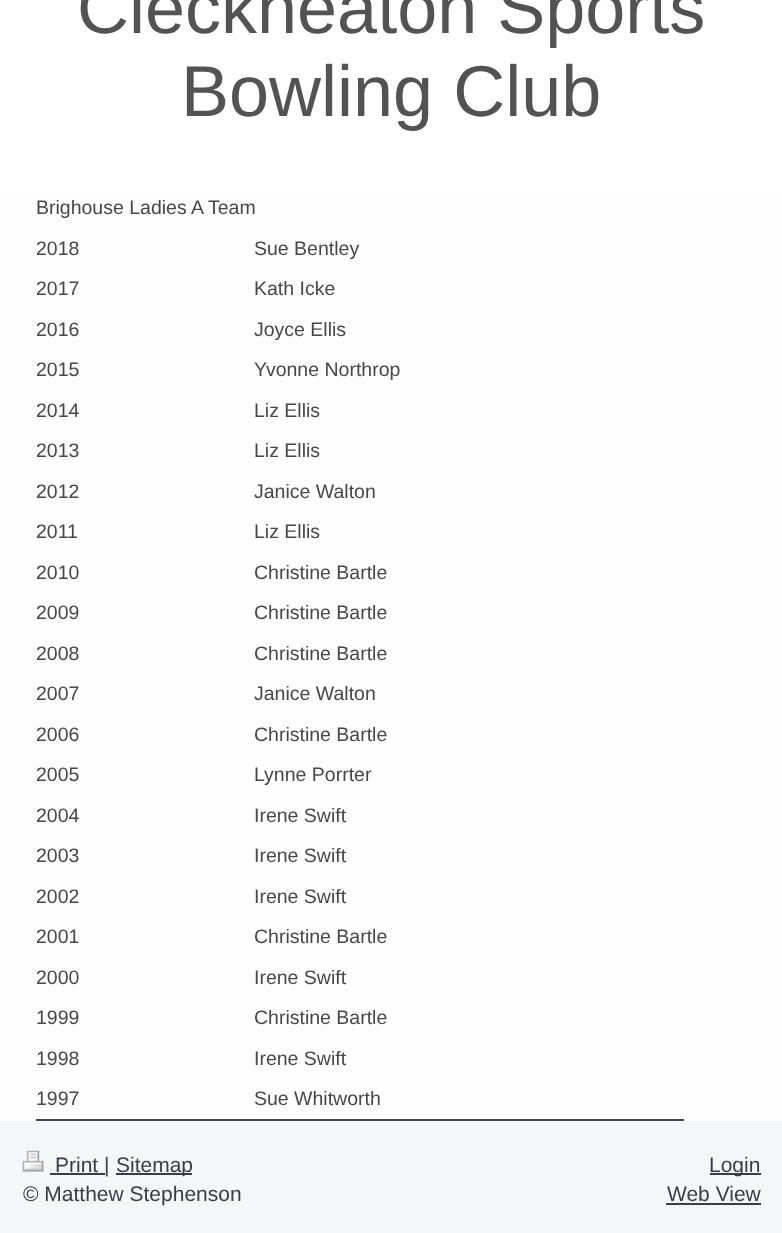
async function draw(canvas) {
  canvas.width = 782;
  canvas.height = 1233;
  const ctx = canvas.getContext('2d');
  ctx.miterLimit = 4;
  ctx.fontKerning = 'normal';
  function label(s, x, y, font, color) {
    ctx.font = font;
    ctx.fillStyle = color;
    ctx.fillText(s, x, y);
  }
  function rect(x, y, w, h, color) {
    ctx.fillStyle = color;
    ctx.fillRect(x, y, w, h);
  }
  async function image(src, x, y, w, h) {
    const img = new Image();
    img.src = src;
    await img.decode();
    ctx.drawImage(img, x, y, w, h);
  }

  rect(0, 0, 782, 1233, '#f5f6f8');
  rect(0, 0, 782, 188, '#fff');
  label('Cleckheaton Sports', 77, 33, '72px Liberation Sans', '#535353');
  label('Bowling Club', 181, 116, '72px Liberation Sans', '#535353');
  rect(0, 188, 782, 933, '#fefeff');
  rect(36, 1119, 648, 2, '#474747');
  label('Brighouse Ladies A Team', 36, 214, '19.5px Liberation Sans', '#474747');
  label('2018', 36, 255, '19.5px Liberation Sans', '#474747');
  label('Sue Bentley', 254, 255, '19.5px Liberation Sans', '#474747');
  label('2017', 36, 295, '19.5px Liberation Sans', '#474747');
  label('Kath Icke', 254, 295, '19.5px Liberation Sans', '#474747');
  label('2016', 36, 336, '19.5px Liberation Sans', '#474747');
  label('Joyce Ellis', 254, 336, '19.5px Liberation Sans', '#474747');
  label('2015', 36, 376, '19.5px Liberation Sans', '#474747');
  label('Yvonne Northrop', 254, 376, '19.5px Liberation Sans', '#474747');
  label('2014', 36, 417, '19.5px Liberation Sans', '#474747');
  label('Liz Ellis', 254, 417, '19.5px Liberation Sans', '#474747');
  label('2013', 36, 457, '19.5px Liberation Sans', '#474747');
  label('Liz Ellis', 254, 457, '19.5px Liberation Sans', '#474747');
  label('2012', 36, 498, '19.5px Liberation Sans', '#474747');
  label('Janice Walton', 254, 498, '19.5px Liberation Sans', '#474747');
  label('2011', 36, 538, '19.5px Liberation Sans', '#474747');
  label('Liz Ellis', 254, 538, '19.5px Liberation Sans', '#474747');
  label('2010', 36, 579, '19.5px Liberation Sans', '#474747');
  label('Christine Bartle', 254, 579, '19.5px Liberation Sans', '#474747');
  label('2009', 36, 619, '19.5px Liberation Sans', '#474747');
  label('Christine Bartle', 254, 619, '19.5px Liberation Sans', '#474747');
  label('2008', 36, 660, '19.5px Liberation Sans', '#474747');
  label('Christine Bartle', 254, 660, '19.5px Liberation Sans', '#474747');
  label('2007', 36, 700, '19.5px Liberation Sans', '#474747');
  label('Janice Walton', 254, 700, '19.5px Liberation Sans', '#474747');
  label('2006', 36, 741, '19.5px Liberation Sans', '#474747');
  label('Christine Bartle', 254, 741, '19.5px Liberation Sans', '#474747');
  label('2005', 36, 781, '19.5px Liberation Sans', '#474747');
  label('Lynne Porrter', 254, 781, '19.5px Liberation Sans', '#474747');
  label('2004', 36, 822, '19.5px Liberation Sans', '#474747');
  label('Irene Swift', 254, 822, '19.5px Liberation Sans', '#474747');
  label('2003', 36, 862, '19.5px Liberation Sans', '#474747');
  label('Irene Swift', 254, 862, '19.5px Liberation Sans', '#474747');
  label('2002', 36, 903, '19.5px Liberation Sans', '#474747');
  label('Irene Swift', 254, 903, '19.5px Liberation Sans', '#474747');
  label('2001', 36, 943, '19.5px Liberation Sans', '#474747');
  label('Christine Bartle', 254, 943, '19.5px Liberation Sans', '#474747');
  label('2000', 36, 984, '19.5px Liberation Sans', '#474747');
  label('Irene Swift', 254, 984, '19.5px Liberation Sans', '#474747');
  label('1999', 36, 1024, '19.5px Liberation Sans', '#474747');
  label('Christine Bartle', 254, 1024, '19.5px Liberation Sans', '#474747');
  label('1998', 36, 1065, '19.5px Liberation Sans', '#474747');
  label('Irene Swift', 254, 1065, '19.5px Liberation Sans', '#474747');
  label('1997', 36, 1105, '19.5px Liberation Sans', '#474747');
  label('Sue Whitworth', 254, 1105, '19.5px Liberation Sans', '#474747');
  await image('assets/img1.png', 22, 1150, 22, 22);
  rect(50, 1173, 55, 2, '#383d46');
  label('Print |', 55, 1172, '21px Liberation Sans', '#383d46');
  rect(116, 1173, 76, 2, '#383d46');
  label('Sitemap', 116, 1172, '21px Liberation Sans', '#383d46');
  label('© Matthew Stephenson', 23, 1201, '21px Liberation Sans', '#383d46');
  rect(710, 1173, 51, 2, '#383d46');
  label('Login', 709, 1172, '21px Liberation Sans', '#383d46');
  label('Web View', 667, 1201, '21px Liberation Sans', '#383d46');
  rect(666, 1203, 95, 2, '#383d46');
}

draw(document.querySelector('canvas'));
